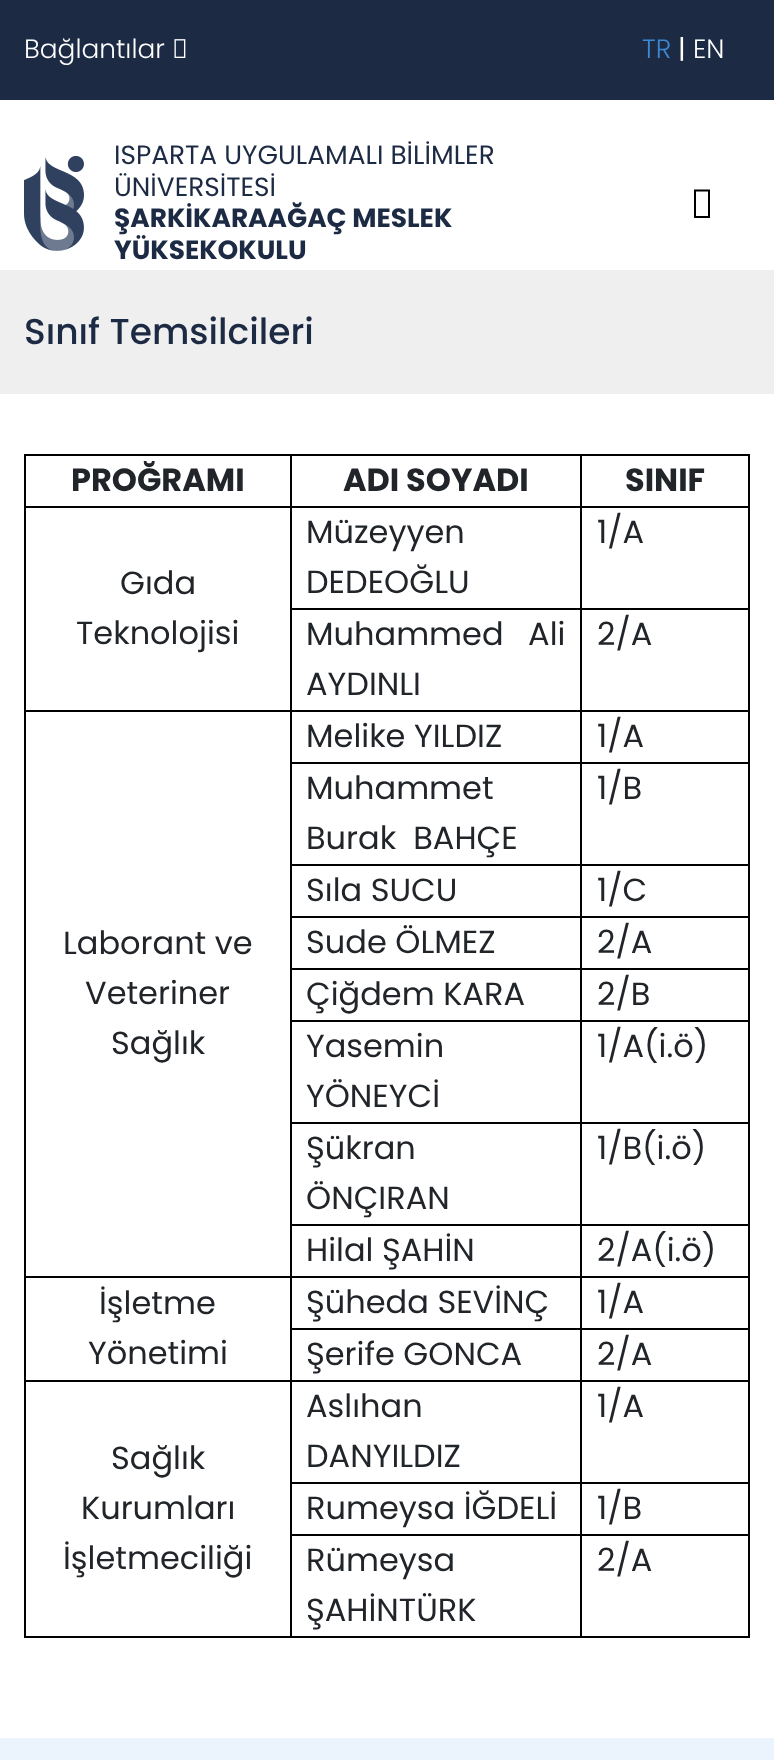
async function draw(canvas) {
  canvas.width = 774;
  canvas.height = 1760;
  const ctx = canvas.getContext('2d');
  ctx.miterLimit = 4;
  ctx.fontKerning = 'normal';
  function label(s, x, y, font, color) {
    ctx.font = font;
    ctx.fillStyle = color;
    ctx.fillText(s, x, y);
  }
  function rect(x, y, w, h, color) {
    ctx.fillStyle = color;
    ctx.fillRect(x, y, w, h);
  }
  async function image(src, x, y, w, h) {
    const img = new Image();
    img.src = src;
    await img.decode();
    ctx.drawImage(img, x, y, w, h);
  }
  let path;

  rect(0, 0, 774, 1760, '#fff');
  rect(0, 0, 774, 100, '#1c2a44');
  label('Bağlantılar', 24, 58, '300 26.4px Poppins', '#fff');
  await image('assets/img1.png', 174, 39, 12, 19);
  label('TR', 642, 58, '300 26.4px Poppins', '#3c88d3');
  label('|', 678, 58, '26.4px Poppins', '#fff');
  label('EN', 693, 58, '300 26.4px Poppins', '#fff');
  await image('assets/img2.png', 24, 155, 60, 96);
  label('ISPARTA UYGULAMALI BİLİMLER', 114, 164, '26.4px Poppins', '#1c2a44');
  label('ÜNİVERSİTESİ', 114, 196, '26.4px Poppins', '#1c2a44');
  label('ŞARKİKARAAĞAÇ MESLEK', 114, 227, 'bold 26.4px Poppins', '#1c2a44');
  label('YÜKSEKOKULU', 114, 259, 'bold 26.4px Poppins', '#1c2a44');
  ctx.fillStyle = '#000';
  path = new Path2D('M694 218V189.5H710V218ZM696 216H708V191.5H696Z');
  ctx.fill(path);
  rect(0, 270, 774, 124, '#efefef');
  label('Sınıf Temsilcileri', 24, 344, '500 36px Poppins', '#1c2a44');
  rect(24, 454, 726, 2, '#000');
  rect(748, 506, 2, 1132, '#000');
  rect(748, 454, 2, 54, '#000');
  rect(580, 1636, 170, 2, '#000');
  rect(580, 1534, 2, 104, '#000');
  rect(580, 1534, 170, 2, '#000');
  rect(580, 1482, 2, 54, '#000');
  rect(580, 1482, 170, 2, '#000');
  rect(580, 1380, 2, 104, '#000');
  rect(580, 1380, 170, 2, '#000');
  rect(580, 1328, 2, 54, '#000');
  rect(580, 1328, 170, 2, '#000');
  rect(580, 1276, 2, 54, '#000');
  rect(580, 1276, 170, 2, '#000');
  rect(580, 1224, 2, 54, '#000');
  rect(580, 1224, 170, 2, '#000');
  rect(580, 1122, 2, 104, '#000');
  rect(580, 1122, 170, 2, '#000');
  rect(580, 1020, 2, 104, '#000');
  rect(580, 1020, 170, 2, '#000');
  rect(580, 968, 2, 54, '#000');
  rect(580, 968, 170, 2, '#000');
  rect(580, 916, 2, 54, '#000');
  rect(580, 916, 170, 2, '#000');
  rect(580, 864, 2, 54, '#000');
  rect(580, 864, 170, 2, '#000');
  rect(580, 762, 2, 104, '#000');
  rect(580, 762, 170, 2, '#000');
  rect(580, 710, 2, 54, '#000');
  rect(580, 710, 170, 2, '#000');
  rect(580, 608, 2, 104, '#000');
  rect(580, 608, 170, 2, '#000');
  rect(580, 506, 2, 104, '#000');
  rect(580, 506, 170, 2, '#000');
  rect(580, 454, 2, 54, '#000');
  rect(290, 608, 292, 2, '#000');
  rect(290, 762, 292, 2, '#000');
  rect(290, 864, 292, 2, '#000');
  rect(290, 916, 292, 2, '#000');
  rect(290, 968, 292, 2, '#000');
  rect(290, 1020, 292, 2, '#000');
  rect(290, 1122, 292, 2, '#000');
  rect(290, 1224, 292, 2, '#000');
  rect(290, 1328, 292, 2, '#000');
  rect(290, 1482, 292, 2, '#000');
  rect(290, 1534, 292, 2, '#000');
  rect(290, 1636, 292, 2, '#000');
  rect(290, 1380, 2, 258, '#000');
  rect(290, 1380, 292, 2, '#000');
  rect(290, 1276, 2, 106, '#000');
  rect(290, 1276, 292, 2, '#000');
  rect(290, 710, 2, 568, '#000');
  rect(290, 710, 292, 2, '#000');
  rect(290, 506, 2, 206, '#000');
  rect(290, 506, 292, 2, '#000');
  rect(290, 454, 2, 54, '#000');
  rect(24, 1636, 268, 2, '#000');
  rect(24, 1380, 2, 258, '#000');
  rect(24, 1380, 268, 2, '#000');
  rect(24, 1276, 2, 106, '#000');
  rect(24, 1276, 268, 2, '#000');
  rect(24, 710, 2, 568, '#000');
  rect(24, 710, 268, 2, '#000');
  rect(24, 506, 2, 206, '#000');
  rect(24, 506, 268, 2, '#000');
  rect(24, 454, 2, 54, '#000');
  label('PROĞRAMI', 71, 491, 'bold 32px Poppins', '#212529');
  label('ADI SOYADI', 343, 491, 'bold 32px Poppins', '#212529');
  label('SINIF', 625, 491, 'bold 32px Poppins', '#212529');
  label('Müzeyyen', 306, 543, '32px Poppins', '#212529');
  label('DEDEOĞLU', 306, 593, '32px Poppins', '#212529');
  label('1/A', 597, 543, '32px Poppins', '#212529');
  label('Gıda', 120, 594, '32px Poppins', '#212529');
  label('Teknolojisi', 76, 644, '32px Poppins', '#212529');
  ctx.wordSpacing = '16px';
  label('Muhammed Ali', 306, 645, '32px Poppins', '#212529');
  ctx.wordSpacing = '0px';
  label('AYDINLI', 306, 695, '32px Poppins', '#212529');
  label('2/A', 597, 645, '32px Poppins', '#212529');
  label('Melike YILDIZ', 306, 747, '32px Poppins', '#212529');
  label('1/A', 597, 747, '32px Poppins', '#212529');
  label('Laborant ve', 63, 954, '32px Poppins', '#212529');
  label('Veteriner', 85, 1004, '32px Poppins', '#212529');
  label('Sağlık', 111, 1054, '32px Poppins', '#212529');
  label('Muhammet', 306, 799, '32px Poppins', '#212529');
  label('Burak  BAHÇE', 306, 849, '32px Poppins', '#212529');
  label('1/B', 597, 799, '32px Poppins', '#212529');
  label('Sıla SUCU', 306, 901, '32px Poppins', '#212529');
  label('1/C', 597, 901, '32px Poppins', '#212529');
  label('Sude ÖLMEZ', 306, 953, '32px Poppins', '#212529');
  label('2/A', 597, 953, '32px Poppins', '#212529');
  label('Çiğdem KARA', 306, 1005, '32px Poppins', '#212529');
  label('2/B', 597, 1005, '32px Poppins', '#212529');
  label('Yasemin', 306, 1057, '32px Poppins', '#212529');
  label('YÖNEYCİ', 306, 1107, '32px Poppins', '#212529');
  label('1/A(i.ö)', 597, 1057, '32px Poppins', '#212529');
  label('Şükran', 306, 1159, '32px Poppins', '#212529');
  label('ÖNÇIRAN', 306, 1209, '32px Poppins', '#212529');
  label('1/B(i.ö)', 597, 1159, '32px Poppins', '#212529');
  label('Hilal ŞAHİN', 306, 1261, '32px Poppins', '#212529');
  label('2/A(i.ö)', 597, 1261, '32px Poppins', '#212529');
  label('İşletme', 99, 1314, '32px Poppins', '#212529');
  label('Yönetimi', 88, 1364, '32px Poppins', '#212529');
  label('Şüheda SEVİNÇ', 306, 1313, '32px Poppins', '#212529');
  label('1/A', 597, 1313, '32px Poppins', '#212529');
  label('Şerife GONCA', 306, 1365, '32px Poppins', '#212529');
  label('2/A', 597, 1365, '32px Poppins', '#212529');
  label('Aslıhan', 306, 1417, '32px Poppins', '#212529');
  label('DANYILDIZ', 306, 1467, '32px Poppins', '#212529');
  label('1/A', 597, 1417, '32px Poppins', '#212529');
  label('Sağlık', 111, 1469, '32px Poppins', '#212529');
  label('Kurumları', 81, 1519, '32px Poppins', '#212529');
  label('İşletmeciliği', 63, 1569, '32px Poppins', '#212529');
  label('Rumeysa İĞDELİ', 306, 1519, '32px Poppins', '#212529');
  label('1/B', 597, 1519, '32px Poppins', '#212529');
  label('Rümeysa', 306, 1571, '32px Poppins', '#212529');
  label('ŞAHİNTÜRK', 306, 1621, '32px Poppins', '#212529');
  label('2/A', 597, 1571, '32px Poppins', '#212529');
  rect(0, 1738, 774, 22, '#ebf4fc');
}

draw(document.querySelector('canvas'));
